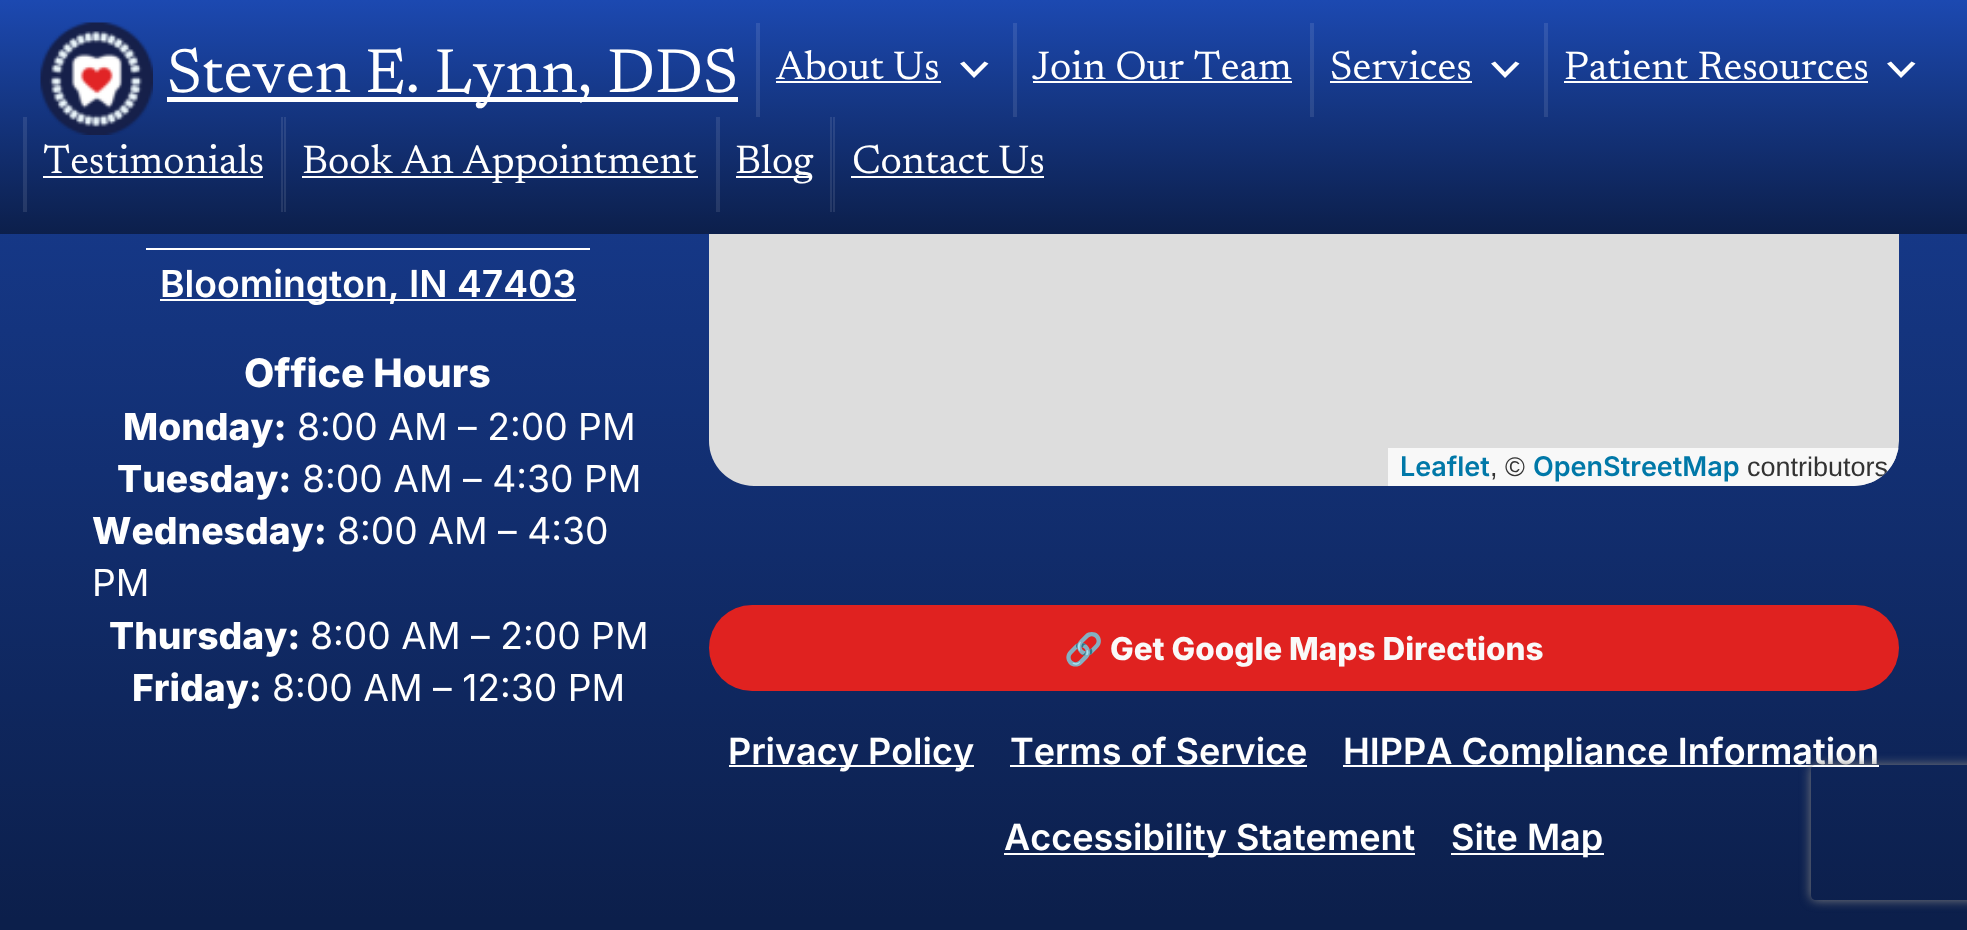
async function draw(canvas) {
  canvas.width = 1967;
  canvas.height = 930;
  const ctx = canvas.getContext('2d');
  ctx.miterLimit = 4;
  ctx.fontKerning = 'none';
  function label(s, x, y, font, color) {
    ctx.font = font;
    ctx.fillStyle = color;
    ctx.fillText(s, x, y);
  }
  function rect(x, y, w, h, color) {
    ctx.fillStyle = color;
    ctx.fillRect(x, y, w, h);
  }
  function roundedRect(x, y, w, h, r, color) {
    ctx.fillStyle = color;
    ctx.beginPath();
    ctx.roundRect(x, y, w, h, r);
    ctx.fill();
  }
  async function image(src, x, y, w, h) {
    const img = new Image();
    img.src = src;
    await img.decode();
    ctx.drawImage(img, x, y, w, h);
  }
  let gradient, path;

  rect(0, 0, 1967, 930, '#fff');
  gradient = ctx.createLinearGradient(984, 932, 984, -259);
  gradient.addColorStop(0.01, '#0c1f4b');
  gradient.addColorStop(1, '#1c49b1');
  ctx.fillStyle = gradient;
  ctx.fillRect(0, 234, 1967, 696);
  roundedRect(709, -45, 1190, 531, 45, '#ddd');
  gradient = ctx.createLinearGradient(984, 0, 984, 234);
  gradient.addColorStop(0, '#1c49b1');
  gradient.addColorStop(1, '#0c1f4b');
  ctx.fillStyle = gradient;
  ctx.fillRect(0, 0, 1967, 234);
  gradient = ctx.createLinearGradient(984, 0, 984, 234);
  gradient.addColorStop(0, '#335bb9');
  gradient.addColorStop(1, '#24355d');
  ctx.fillStyle = gradient;
  ctx.fillRect(830, 117, 2, 95);
  ctx.fillRect(833, 117, 2, 95);
  ctx.fillRect(716, 117, 2, 95);
  ctx.fillRect(718, 117, 2, 95);
  ctx.fillRect(281, 117, 2, 95);
  ctx.fillRect(23, 117, 2, 95);
  ctx.fillRect(25, 117, 2, 95);
  ctx.fillRect(1013, 23, 2, 94);
  ctx.fillRect(1015, 23, 2, 94);
  ctx.fillRect(1544, 23, 2, 94);
  ctx.fillRect(1546, 23, 2, 94);
  ctx.fillRect(756, 23, 2, 94);
  ctx.fillRect(758, 23, 2, 94);
  await image('assets/img1.png', 40, 22, 113, 113);
  rect(167, 97, 571, 5, '#fff');
  label('Steven E. Lynn, DDS', 167, 92, '63px Newsreader', '#fff');
  label('About Us', 776, 79, '40.5px Newsreader', '#fff');
  rect(776, 81, 165, 2, '#fff');
  path = new Path2D('M964 61.5L974 72L984.5 61.5L988.5 63.5L974 78L960 63.5Z');
  ctx.fill(path);
  label('Join Our Team', 1032, 79, '40.5px Newsreader', '#fff');
  rect(1033, 81, 259, 2, '#fff');
  rect(1312, 23, 2, 94, '#ffffff1a');
  rect(1310, 23, 2, 94, '#ffffff1a');
  label('Services', 1330, 79, '40.5px Newsreader', '#fff');
  rect(1330, 81, 142, 2, '#fff');
  path = new Path2D('M1495 61.5L1505 72L1515.5 61.5L1519.5 63.5L1505 78L1491 63.5Z');
  ctx.fill(path);
  label('Patient Resources', 1564, 79, '40.5px Newsreader', '#fff');
  rect(1564, 81, 304, 2, '#fff');
  path = new Path2D('M1891 61.5L1901 72L1911.5 61.5L1915.5 63.5L1901 78L1887 63.5Z');
  ctx.fill(path);
  label('Testimonials', 43, 173, '40.5px Newsreader', '#fff');
  rect(43, 176, 220, 2, '#fff');
  rect(284, 117, 2, 95, '#ffffff1a');
  rect(302, 176, 396, 2, '#fff');
  label('Book An Appointment', 302, 173, '40.5px Newsreader', '#fff');
  rect(736, 176, 76, 2, '#fff');
  label('Blog', 735, 173, '40.5px Newsreader', '#fff');
  label('Contact Us', 852, 173, '40.5px Newsreader', '#fff');
  rect(851, 176, 193, 2, '#fff');
  rect(160, 299, 416, 2, '#fff');
  label('Bloomington, IN 47403', 160, 297, '600 37.25px Inter', '#fff');
  rect(146, 248, 444, 2, '#fff');
  label('Office Hours', 244, 387, '800 39.25px Inter', '#fff');
  label('Monday:', 123, 440, '800 37.25px Inter', '#fff');
  label('8:00 AM – 2:00 PM', 297, 440, '37.25px Inter', '#fff');
  label('Tuesday:', 117, 492, '800 37.25px Inter', '#fff');
  label('8:00 AM – 4:30 PM', 302, 492, '37.25px Inter', '#fff');
  label('Wednesday:', 92, 544, '800 37.25px Inter', '#fff');
  label('8:00 AM – 4:30', 337, 544, '37.25px Inter', '#fff');
  label('PM', 92, 596, '37.25px Inter', '#fff');
  label('Thursday:', 109, 649, '800 37.25px Inter', '#fff');
  label('8:00 AM – 2:00 PM', 310, 649, '37.25px Inter', '#fff');
  label('Friday:', 132, 701, '800 37.25px Inter', '#fff');
  label('8:00 AM – 12:30 PM', 272, 701, '37.25px Inter', '#fff');
  ctx.save();
  ctx.beginPath();
  ctx.roundRect(709, -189, 1190, 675, 45);
  ctx.clip();
  rect(1388, 448, 511, 38, '#ffffffcc');
  ctx.restore();
  label('Leaflet', 1400, 476, '600 27px Inter', '#0078a8');
  label(', ©', 1490, 476, '27px Liberation Sans', '#333');
  label('OpenStreetMap', 1533, 476, '600 27px Inter', '#0078a8');
  ctx.save();
  ctx.beginPath();
  ctx.roundRect(709, -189, 1190, 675, 45);
  ctx.clip();
  label('contributors', 1747, 476, '27px Liberation Sans', '#333');
  ctx.restore();
  roundedRect(709, 605, 1190, 86, 43, '#e02220');
  label('🔗', 1064, 660, 'bold 31.5px Noto Color Emoji', '#f9f9f9');
  label('Get Google Maps Directions', 1110, 660, '800 31.5px Inter', '#f9f9f9');
  rect(729, 765, 245, 2, '#fff');
  label('Privacy Policy', 728, 764, '600 36px Inter', '#fff');
  label('Terms of Service', 1010, 764, '600 36px Inter', '#fff');
  rect(1010, 765, 297, 2, '#fff');
  rect(1343, 765, 536, 2, '#fff');
  label('HIPPA Compliance Information', 1343, 764, '600 36px Inter', '#fff');
  rect(1004, 853, 411, 2, '#fff');
  label('Accessibility Statement', 1004, 850, '600 36px Inter', '#fff');
  rect(1451, 853, 153, 2, '#fff');
  label('Site Map', 1451, 850, '600 36px Inter', '#fff');
  ctx.save();
  path = new Path2D('M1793 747H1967V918H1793ZM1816 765H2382C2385 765 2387 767 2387 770V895C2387 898 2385 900 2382 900H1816C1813 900 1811 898 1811 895V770C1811 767 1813 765 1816 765Z');
  ctx.clip(path, 'evenodd');
  ctx.fillStyle = '#808080';
  ctx.filter = 'blur(5.5px)';
  ctx.beginPath();
  ctx.roundRect(1811, 765, 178, 135, 5);
  ctx.fill();
  ctx.filter = 'none';
  ctx.restore();
}

draw(document.querySelector('canvas'));
